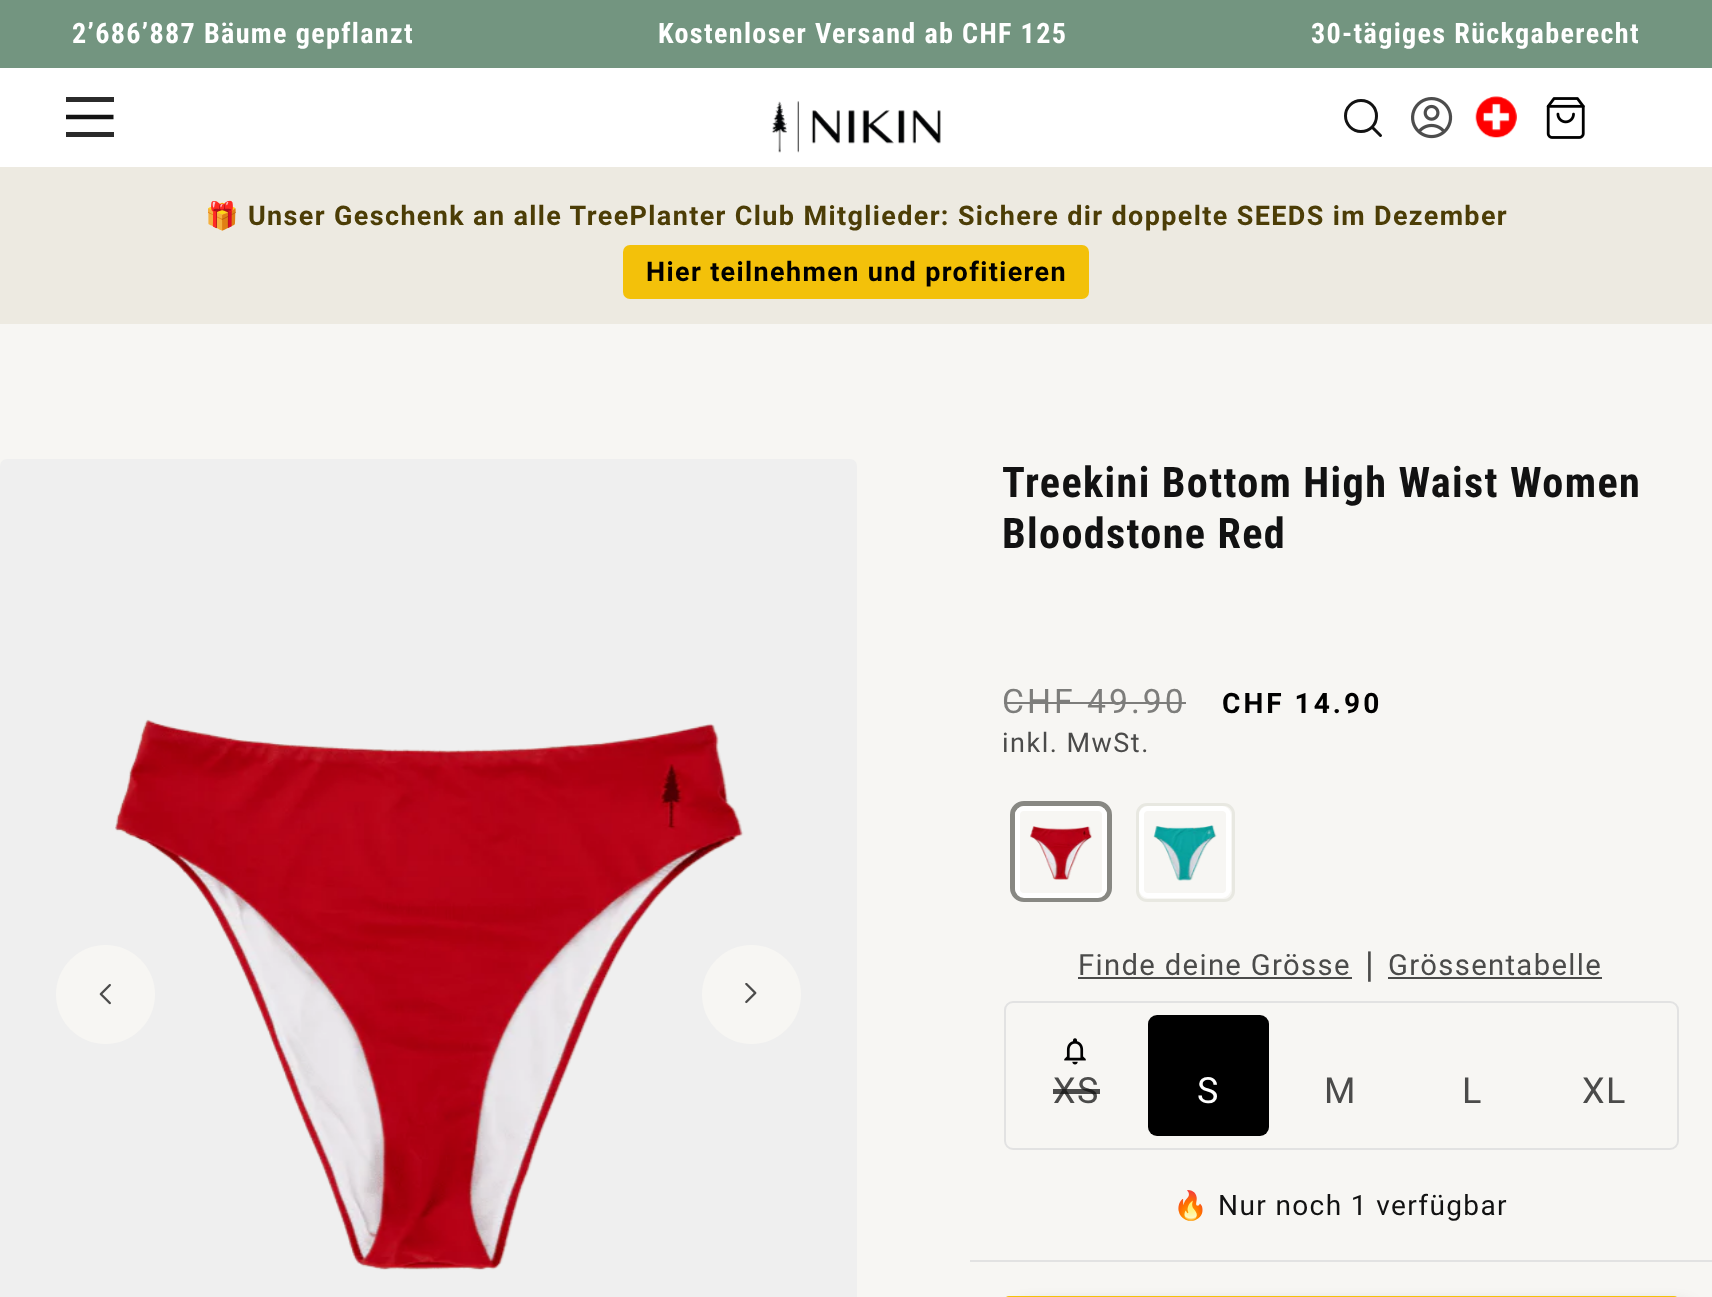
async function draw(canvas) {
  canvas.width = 1712;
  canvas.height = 1297;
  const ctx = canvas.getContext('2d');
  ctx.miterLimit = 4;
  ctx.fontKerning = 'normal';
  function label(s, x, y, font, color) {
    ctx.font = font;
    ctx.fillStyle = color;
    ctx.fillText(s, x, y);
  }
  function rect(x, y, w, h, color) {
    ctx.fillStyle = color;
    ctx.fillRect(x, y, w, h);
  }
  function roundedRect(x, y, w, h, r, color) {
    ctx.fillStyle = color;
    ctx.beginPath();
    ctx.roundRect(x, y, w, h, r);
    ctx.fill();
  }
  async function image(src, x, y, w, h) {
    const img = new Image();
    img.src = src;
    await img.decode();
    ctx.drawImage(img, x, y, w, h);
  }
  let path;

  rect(0, 0, 1712, 1297, '#f7f6f3');
  rect(0, 0, 1712, 68, '#739580');
  ctx.letterSpacing = '1.35px';
  label('2’686’887 Bäume gepflanzt', 72, 43, 'bold 28.1px Roboto Condensed', '#fff');
  label('Kostenloser Versand ab CHF 125', 658, 43, 'bold 28.1px Roboto Condensed', '#fff');
  label('30-tägiges Rückgaberecht', 1311, 43, 'bold 28.1px Roboto Condensed', '#fff');
  rect(0, 68, 1712, 99, '#fff');
  rect(66, 97, 48, 5, '#2b2b2b');
  path = new Path2D('M66 117H113.5');
  ctx.strokeStyle = '#131313';
  ctx.lineWidth = 4.5;
  ctx.stroke(path);
  rect(66, 132, 48, 5, '#2b2b2b');
  path = new Path2D('M1376.5 116C1376.5 124.5 1370 131.5 1361 131.5C1352.5 131.5 1345.5 124.5 1345.5 116C1345.5 107.5 1352.5 100.5 1361 100.5C1370 100.5 1376.5 107.5 1376.5 116ZM1380.5 135.5L1372 127');
  ctx.lineWidth = 3;
  ctx.lineCap = 'round';
  ctx.lineJoin = 'round';
  ctx.stroke(path);
  await image('assets/img1.png', 1411, 97, 42, 42);
  await image('assets/img2.png', 1475, 96, 42, 42);
  await image('assets/img3.png', 1546, 97, 39, 42);
  await image('assets/img4.png', 771, 101, 170, 52);
  rect(0, 167, 1712, 157, '#edeae1');
  label('🎁', 205, 225, 'bold 27px Noto Color Emoji', '#4c3d06');
  label('Unser Geschenk an alle TreePlanter Club Mitglieder: Sichere dir doppelte SEEDS im Dezember', 248, 225, 'bold 27px Roboto', '#4c3d06');
  roundedRect(623, 245, 466, 54, 7, '#f3c10a');
  label('Hier teilnehmen und profitieren', 646, 281, 'bold 27px Roboto', '#000');
  roundedRect(0, 459, 857, 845, 7, '#efefef');
  await image('assets/img5.png', 115, 719, 629, 551);
  ctx.fillStyle = '#f7f6f3';
  ctx.beginPath();
  ctx.arc(105.5, 994.5, 49.5, 0, 2 * Math.PI);
  ctx.fill();
  await image('assets/img6.png', 99, 984, 12, 21);
  ctx.beginPath();
  ctx.arc(751.5, 994.5, 49.5, 0, 2 * Math.PI);
  ctx.fill();
  await image('assets/img7.png', 745, 983, 12, 21);
  label('Treekini Bottom High Waist Women', 1002, 497, 'bold 42.25px Roboto Condensed', '#121212');
  label('Bloodstone Red', 1002, 548, 'bold 42.25px Roboto Condensed', '#121212');
  ctx.letterSpacing = '3px';
  label('CHF 49.90', 1002, 713, '33.75px Roboto', '#7d7d7b');
  rect(1004, 702, 182, 2, '#7d7d7b');
  label('CHF 14.90', 1222, 713, 'bold 28.1px Roboto', '#000');
  ctx.letterSpacing = '1.5px';
  label('inkl. MwSt.', 1002, 752, '27px Roboto', '#4b4b4a');
  ctx.beginPath();
  ctx.roundRect(1012.5, 803.5, 97, 96, 11.5);
  ctx.strokeStyle = '#888883';
  ctx.lineWidth = 5;
  ctx.lineJoin = 'miter';
  ctx.stroke();
  ctx.beginPath();
  ctx.roundRect(1017.5, 808.5, 87, 87, 6.5);
  ctx.strokeStyle = '#fff';
  ctx.stroke();
  await image('assets/img8.png', 1030, 826, 62, 54);
  ctx.beginPath();
  ctx.roundRect(1137.5, 804.5, 96, 96, 9.5);
  ctx.strokeStyle = '#e8e8e1';
  ctx.lineWidth = 3;
  ctx.stroke();
  ctx.beginPath();
  ctx.roundRect(1141.5, 808.5, 87, 87, 6.5);
  ctx.strokeStyle = '#fff';
  ctx.lineWidth = 5;
  ctx.stroke();
  await image('assets/img9.png', 1153, 825, 64, 56);
  ctx.letterSpacing = '1.35px';
  label('Finde deine Grösse', 1078, 975, '29.25px Roboto', '#4b4b4a');
  rect(1078, 977, 274, 2, '#4b4b4a');
  label('|', 1365, 977, '36px Roboto', '#4b4b4a');
  label('Grössentabelle', 1388, 975, '29.25px Roboto', '#4b4b4a');
  rect(1388, 977, 214, 2, '#4b4b4a');
  rect(970, 1260, 742, 2, '#e2e2e2');
  ctx.beginPath();
  ctx.roundRect(1005, 1002, 673, 147, 8);
  ctx.strokeStyle = '#e2e2e2';
  ctx.lineWidth = 2;
  ctx.stroke();
  await image('assets/img10.png', 1064, 1038, 22, 27);
  label('XS', 1053, 1103, '36px Roboto', '#4b4b4a');
  rect(1053, 1089, 47, 5, '#121212bf');
  roundedRect(1148, 1015, 121, 121, 9, '#000');
  label('S', 1197, 1103, '36px Roboto', '#fff');
  label('M', 1324, 1103, '36px Roboto', '#4b4b4a');
  label('L', 1462, 1103, '36px Roboto', '#4b4b4a');
  label('XL', 1582, 1103, '36px Roboto', '#4b4b4a');
  label('🔥', 1173, 1215, '28.1px Noto Color Emoji', '#121212');
  label('Nur noch 1 verfügbar', 1218, 1215, '28.1px Roboto', '#121212');
  ctx.fillStyle = '#000000bf';
  ctx.filter = 'blur(11px)';
  ctx.beginPath();
  ctx.roundRect(1022, 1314, 661, 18, 2);
  ctx.fill();
  ctx.filter = 'none';
  roundedRect(1004, 1296, 675, 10, 9, '#f3c10a');
}

draw(document.querySelector('canvas'));
